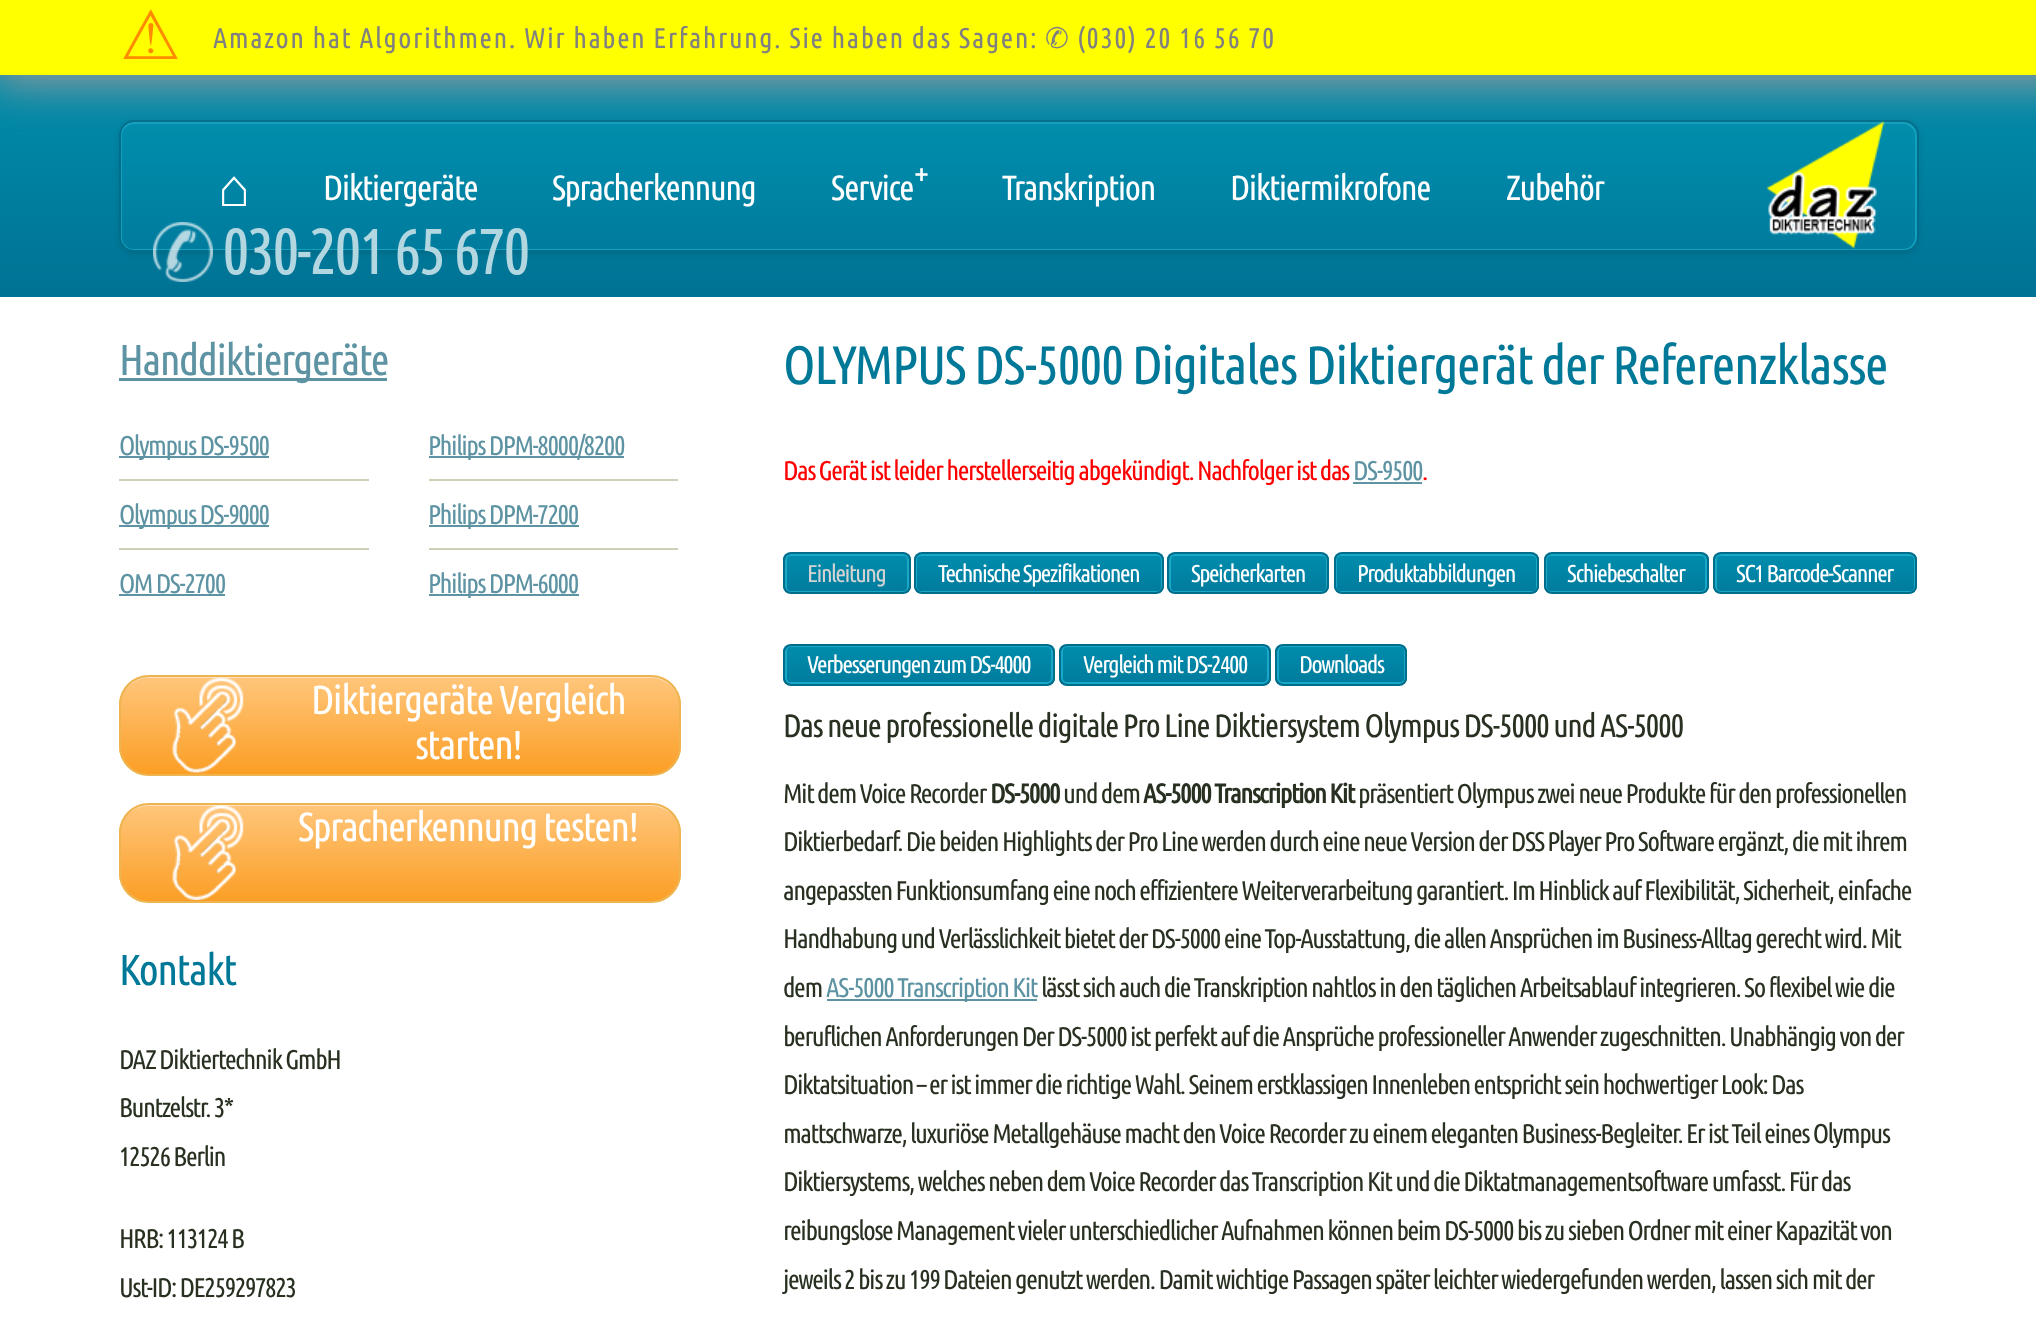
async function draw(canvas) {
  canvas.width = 2036;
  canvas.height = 1323;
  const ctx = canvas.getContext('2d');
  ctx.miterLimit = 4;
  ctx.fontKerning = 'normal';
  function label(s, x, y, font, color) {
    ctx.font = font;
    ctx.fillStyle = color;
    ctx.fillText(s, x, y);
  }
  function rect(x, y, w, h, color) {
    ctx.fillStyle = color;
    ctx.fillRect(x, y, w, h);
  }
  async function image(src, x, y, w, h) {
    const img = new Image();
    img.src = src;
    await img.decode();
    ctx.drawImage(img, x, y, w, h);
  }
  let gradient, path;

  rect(0, 0, 2036, 1323, '#fff');
  gradient = ctx.createLinearGradient(0, 75, 0, 297);
  gradient.addColorStop(0, '#008dab');
  gradient.addColorStop(1, '#007294');
  ctx.fillStyle = gradient;
  ctx.fillRect(0, 75, 2036, 222);
  ctx.fillStyle = '#0000001a';
  ctx.filter = 'blur(3px)';
  ctx.beginPath();
  ctx.roundRect(119, 122, 1800, 132, 15);
  ctx.fill();
  ctx.filter = 'none';
  ctx.save();
  ctx.beginPath();
  ctx.roundRect(119, 120, 1800, 132, 15);
  ctx.clip();
  gradient = ctx.createLinearGradient(120, 122, 120, 251);
  gradient.addColorStop(0, '#008ead');
  gradient.addColorStop(1, '#007b9d');
  ctx.fillStyle = gradient;
  ctx.fillRect(119, 122, 1800, 129);
  ctx.restore();
  ctx.beginPath();
  ctx.roundRect(121, 123, 1795, 127, 13);
  ctx.strokeStyle = '#12a0bf';
  ctx.lineWidth = 2;
  ctx.stroke();
  ctx.beginPath();
  ctx.roundRect(120, 121, 1798, 130, 14);
  ctx.strokeStyle = '#006e8b';
  ctx.stroke();
  await image('assets/img1.png', 1766, 121, 119, 128);
  ctx.fillStyle = '#999';
  ctx.filter = 'blur(22.5px)';
  ctx.beginPath();
  ctx.rect(-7, -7, 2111, 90);
  ctx.fill();
  ctx.filter = 'none';
  rect(0, 0, 2036, 75, '#ff0');
  ctx.letterSpacing = '-1.5px';
  label('⚠', 120, 59, '68px DejaVu Sans', '#ff8c00');
  ctx.letterSpacing = '1.5px';
  label('Amazon hat Algorithmen. Wir haben Erfahrung. Sie haben das Sagen:', 213, 48, '28.5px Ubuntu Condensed', '#808080');
  label('✆', 1045, 48, '28.5px DejaVu Sans', '#808080');
  label('(030) 20 16 56 70', 1077, 48, '28.5px Ubuntu Condensed', '#808080');
  ctx.letterSpacing = '-1.5px';
  label('⌂', 218, 206, 'bold 53px Liberation Sans', '#fff');
  label('Diktiergeräte', 323, 200, '35px Ubuntu Condensed', '#fff');
  label('Spracherkennung', 552, 200, '35px Ubuntu Condensed', '#fff');
  label('Service', 831, 200, '35px Ubuntu Condensed', '#fff');
  label('+', 914, 185, '35px Ubuntu Condensed', '#fff');
  label('Transkription', 1002, 200, '35px Ubuntu Condensed', '#fff');
  label('Diktiermikrofone', 1230, 200, '35px Ubuntu Condensed', '#fff');
  label('Zubehör', 1506, 200, '35px Ubuntu Condensed', '#fff');
  await image('assets/img2.png', 153, 222, 60, 60);
  ctx.letterSpacing = '-3px';
  label('030-201 65 670', 222, 274, '65px Ubuntu Condensed', '#b3d7e1');
  rect(119, 378, 268, 3, '#5d93a2');
  ctx.letterSpacing = '-1.5px';
  label('Handdiktiergeräte', 119, 375, '43.25px Ubuntu Condensed', '#5d93a2');
  rect(119, 456, 150, 2, '#5d93a2');
  label('Olympus DS-9500', 119, 455, '27px Ubuntu Condensed', '#5d93a2');
  rect(119, 479, 250, 2, '#ced0b7');
  rect(119, 525, 150, 2, '#5d93a2');
  label('Olympus DS-9000', 119, 524, '27px Ubuntu Condensed', '#5d93a2');
  rect(119, 548, 250, 2, '#ced0b7');
  label('OM DS-2700', 119, 593, '27px Ubuntu Condensed', '#5d93a2');
  rect(119, 594, 106, 2, '#5d93a2');
  rect(429, 456, 195, 2, '#5d93a2');
  label('Philips DPM-8000/8200', 428, 455, '27px Ubuntu Condensed', '#5d93a2');
  rect(429, 479, 249, 2, '#ced0b7');
  rect(429, 525, 150, 2, '#5d93a2');
  label('Philips DPM-7200', 428, 524, '27px Ubuntu Condensed', '#5d93a2');
  rect(429, 548, 249, 2, '#ced0b7');
  rect(429, 594, 150, 2, '#5d93a2');
  label('Philips DPM-6000', 428, 593, '27px Ubuntu Condensed', '#5d93a2');
  ctx.save();
  ctx.beginPath();
  ctx.roundRect(119, 675, 562, 101, 30);
  ctx.clip();
  gradient = ctx.createLinearGradient(120, 677, 120, 774);
  gradient.addColorStop(0.05, '#ffc477');
  gradient.addColorStop(1, '#fb9e25');
  ctx.fillStyle = gradient;
  ctx.fillRect(119, 677, 562, 97);
  ctx.restore();
  ctx.fillStyle = '#fce2c1';
  path = new Path2D('M148 678H651C667 678 680 691 680 706C680 690 667 677 651 677H149C133 677 120 690 120 706C120 691 133 678 148 678Z');
  ctx.fill(path);
  ctx.beginPath();
  ctx.roundRect(120, 676, 560, 99, 29);
  ctx.strokeStyle = '#eeb44f';
  ctx.stroke();
  await image('assets/img3.png', 172, 677, 72, 96);
  label('Diktiergeräte Vergleich', 311, 714, '40.5px Ubuntu Condensed', '#fff');
  label('starten!', 415, 759, '40.5px Ubuntu Condensed', '#fff');
  ctx.save();
  ctx.beginPath();
  ctx.roundRect(119, 803, 562, 100, 30);
  ctx.clip();
  gradient = ctx.createLinearGradient(120, 804, 120, 902);
  gradient.addColorStop(0.05, '#ffc477');
  gradient.addColorStop(1, '#fb9e25');
  ctx.fillStyle = gradient;
  ctx.fillRect(119, 804, 562, 98);
  ctx.restore();
  ctx.fillStyle = '#fce2c1';
  path = new Path2D('M148 806H651C667 806 680 818 680 834V833C680 817 667 804 651 804H149C133 804 120 817 120 833V834C120 818 133 806 148 806Z');
  ctx.fill(path);
  ctx.beginPath();
  ctx.roundRect(120, 804, 560, 98, 29);
  ctx.stroke();
  await image('assets/img4.png', 172, 805, 72, 95);
  label('Spracherkennung testen!', 298, 841, '40.5px Ubuntu Condensed', '#fff');
  label('Kontakt', 119, 985, '43.25px Ubuntu Condensed', '#007897');
  label('DAZ Diktiertechnik GmbH', 119, 1069, '27px Ubuntu Condensed', '#283121');
  label('Buntzelstr. 3*', 119, 1117, '27px Ubuntu Condensed', '#283121');
  label('12526 Berlin', 119, 1166, '27px Ubuntu Condensed', '#283121');
  label('HRB: 113124 B', 119, 1248, '27px Ubuntu Condensed', '#283121');
  label('Ust-ID: DE259297823', 119, 1297, '27px Ubuntu Condensed', '#283121');
  label('OLYMPUS DS-5000 Digitales Diktiergerät der Referenzklasse', 783, 384, '54px Ubuntu Condensed', '#007897');
  label('Das Gerät ist leider herstellerseitig abgekündigt. Nachfolger ist das', 783, 480, '27px Ubuntu Condensed', '#f00');
  label('DS-9500', 1353, 480, '27px Ubuntu Condensed', '#5d93a2');
  rect(1353, 482, 69, 2, '#5d93a2');
  label('.', 1422, 480, '27px Ubuntu Condensed', '#f00');
  ctx.save();
  ctx.beginPath();
  ctx.roundRect(783, 552, 128, 42, 8);
  ctx.clip();
  gradient = ctx.createLinearGradient(785, 554, 785, 593);
  gradient.addColorStop(0, '#008dad');
  gradient.addColorStop(1, '#007b9d');
  ctx.fillStyle = gradient;
  ctx.fillRect(783, 554, 128, 39);
  ctx.restore();
  ctx.beginPath();
  ctx.roundRect(786, 555, 122, 37, 5);
  ctx.strokeStyle = '#18a8c8';
  ctx.stroke();
  ctx.beginPath();
  ctx.roundRect(784, 553, 126, 40, 7);
  ctx.strokeStyle = '#006e8b';
  ctx.stroke();
  label('Einleitung', 807, 582, '24.25px Ubuntu Condensed', '#d3d3d3');
  ctx.save();
  ctx.beginPath();
  ctx.roundRect(914, 552, 250, 42, 8);
  ctx.clip();
  gradient = ctx.createLinearGradient(915, 554, 915, 593);
  gradient.addColorStop(0, '#008dad');
  gradient.addColorStop(1, '#007b9d');
  ctx.fillStyle = gradient;
  ctx.fillRect(914, 554, 250, 39);
  ctx.restore();
  ctx.beginPath();
  ctx.roundRect(916, 555, 246, 37, 5);
  ctx.strokeStyle = '#18a8c8';
  ctx.stroke();
  ctx.beginPath();
  ctx.roundRect(915, 553, 248, 40, 7);
  ctx.strokeStyle = '#006e8b';
  ctx.stroke();
  label('Technische Spezifikationen', 938, 582, '24.25px Ubuntu Condensed', '#fff');
  ctx.save();
  ctx.beginPath();
  ctx.roundRect(1167, 552, 162, 42, 8);
  ctx.clip();
  gradient = ctx.createLinearGradient(1169, 554, 1169, 593);
  gradient.addColorStop(0, '#008dad');
  gradient.addColorStop(1, '#007b9d');
  ctx.fillStyle = gradient;
  ctx.fillRect(1167, 554, 162, 39);
  ctx.restore();
  ctx.beginPath();
  ctx.roundRect(1170, 555, 157, 37, 5);
  ctx.strokeStyle = '#18a8c8';
  ctx.stroke();
  ctx.beginPath();
  ctx.roundRect(1168, 553, 160, 40, 7);
  ctx.strokeStyle = '#006e8b';
  ctx.stroke();
  label('Speicherkarten', 1191, 582, '24.25px Ubuntu Condensed', '#fff');
  ctx.save();
  ctx.beginPath();
  ctx.roundRect(1334, 552, 205, 42, 8);
  ctx.clip();
  gradient = ctx.createLinearGradient(1335, 554, 1335, 593);
  gradient.addColorStop(0, '#008dad');
  gradient.addColorStop(1, '#007b9d');
  ctx.fillStyle = gradient;
  ctx.fillRect(1334, 554, 205, 39);
  ctx.restore();
  ctx.beginPath();
  ctx.roundRect(1336, 555, 201, 37, 5);
  ctx.strokeStyle = '#18a8c8';
  ctx.stroke();
  ctx.beginPath();
  ctx.roundRect(1335, 553, 203, 40, 7);
  ctx.strokeStyle = '#006e8b';
  ctx.stroke();
  label('Produktabbildungen', 1357, 582, '24.25px Ubuntu Condensed', '#fff');
  ctx.save();
  ctx.beginPath();
  ctx.roundRect(1544, 552, 165, 42, 8);
  ctx.clip();
  gradient = ctx.createLinearGradient(1545, 554, 1545, 593);
  gradient.addColorStop(0, '#008dad');
  gradient.addColorStop(1, '#007b9d');
  ctx.fillStyle = gradient;
  ctx.fillRect(1544, 554, 165, 39);
  ctx.restore();
  ctx.beginPath();
  ctx.roundRect(1546, 555, 160, 37, 5);
  ctx.strokeStyle = '#18a8c8';
  ctx.stroke();
  ctx.beginPath();
  ctx.roundRect(1545, 553, 163, 40, 7);
  ctx.strokeStyle = '#006e8b';
  ctx.stroke();
  label('Schiebeschalter', 1567, 582, '24.25px Ubuntu Condensed', '#fff');
  ctx.save();
  ctx.beginPath();
  ctx.roundRect(1713, 552, 204, 42, 8);
  ctx.clip();
  gradient = ctx.createLinearGradient(1715, 554, 1715, 593);
  gradient.addColorStop(0, '#008dad');
  gradient.addColorStop(1, '#007b9d');
  ctx.fillStyle = gradient;
  ctx.fillRect(1713, 554, 204, 39);
  ctx.restore();
  ctx.beginPath();
  ctx.roundRect(1716, 555, 199, 37, 5);
  ctx.strokeStyle = '#18a8c8';
  ctx.stroke();
  ctx.beginPath();
  ctx.roundRect(1714, 553, 202, 40, 7);
  ctx.strokeStyle = '#006e8b';
  ctx.stroke();
  label('SC1 Barcode-Scanner', 1736, 582, '24.25px Ubuntu Condensed', '#fff');
  ctx.save();
  ctx.beginPath();
  ctx.roundRect(783, 644, 272, 42, 8);
  ctx.clip();
  gradient = ctx.createLinearGradient(785, 645, 785, 684);
  gradient.addColorStop(0, '#008dad');
  gradient.addColorStop(1, '#007b9d');
  ctx.fillStyle = gradient;
  ctx.fillRect(783, 645, 272, 39);
  ctx.restore();
  ctx.beginPath();
  ctx.roundRect(786, 646, 266, 37, 5);
  ctx.strokeStyle = '#18a8c8';
  ctx.stroke();
  ctx.beginPath();
  ctx.roundRect(784, 645, 270, 40, 7);
  ctx.strokeStyle = '#006e8b';
  ctx.stroke();
  label('Verbesserungen zum DS-4000', 807, 673, '24.25px Ubuntu Condensed', '#fff');
  ctx.save();
  ctx.beginPath();
  ctx.roundRect(1059, 644, 212, 42, 8);
  ctx.clip();
  gradient = ctx.createLinearGradient(1061, 645, 1061, 684);
  gradient.addColorStop(0, '#008dad');
  gradient.addColorStop(1, '#007b9d');
  ctx.fillStyle = gradient;
  ctx.fillRect(1059, 645, 212, 39);
  ctx.restore();
  ctx.beginPath();
  ctx.roundRect(1062, 646, 206, 37, 5);
  ctx.strokeStyle = '#18a8c8';
  ctx.stroke();
  ctx.beginPath();
  ctx.roundRect(1060, 645, 210, 40, 7);
  ctx.strokeStyle = '#006e8b';
  ctx.stroke();
  label('Vergleich mit DS-2400', 1083, 673, '24.25px Ubuntu Condensed', '#fff');
  ctx.save();
  ctx.beginPath();
  ctx.roundRect(1275, 644, 132, 42, 8);
  ctx.clip();
  gradient = ctx.createLinearGradient(1277, 645, 1277, 684);
  gradient.addColorStop(0, '#008dad');
  gradient.addColorStop(1, '#007b9d');
  ctx.fillStyle = gradient;
  ctx.fillRect(1275, 645, 132, 39);
  ctx.restore();
  ctx.beginPath();
  ctx.roundRect(1278, 646, 127, 37, 5);
  ctx.strokeStyle = '#18a8c8';
  ctx.stroke();
  ctx.beginPath();
  ctx.roundRect(1276, 645, 130, 40, 7);
  ctx.strokeStyle = '#006e8b';
  ctx.stroke();
  label('Downloads', 1299, 673, '24.25px Ubuntu Condensed', '#fff');
  label('Das neue professionelle digitale Pro Line Diktiersystem Olympus DS-5000 und AS-5000', 783, 737, '32.4px Ubuntu Condensed', '#283121');
  label('Mit dem Voice Recorder', 783, 803, '27px Ubuntu Condensed', '#283121');
  label('DS-5000', 990, 803, 'bold 27px Ubuntu Condensed', '#283121');
  label('und dem', 1063, 803, '27px Ubuntu Condensed', '#283121');
  label('AS-5000 Transcription Kit', 1143, 803, 'bold 27px Ubuntu Condensed', '#283121');
  label('präsentiert Olympus zwei neue Produkte für den professionellen', 1358, 803, '27px Ubuntu Condensed', '#283121');
  label('Diktierbedarf. Die beiden Highlights der Pro Line werden durch eine neue Version der DSS Player Pro Software ergänzt, die mit ihrem', 783, 851, '27px Ubuntu Condensed', '#283121');
  label('angepassten Funktionsumfang eine noch effizientere Weiterverarbeitung garantiert. Im Hinblick auf Flexibilität, Sicherheit, einfache', 783, 900, '27px Ubuntu Condensed', '#283121');
  label('Handhabung und Verlässlichkeit bietet der DS-5000 eine Top-Ausstattung, die allen Ansprüchen im Business-Alltag gerecht wird. Mit', 783, 948, '27px Ubuntu Condensed', '#283121');
  label('dem', 783, 997, '27px Ubuntu Condensed', '#283121');
  rect(827, 999, 210, 2, '#5d93a2');
  label('AS-5000 Transcription Kit', 826, 997, '27px Ubuntu Condensed', '#5d93a2');
  label('lässt sich auch die Transkription nahtlos in den täglichen Arbeitsablauf integrieren. So flexibel wie die', 1041, 997, '27px Ubuntu Condensed', '#283121');
  label('beruflichen Anforderungen Der DS-5000 ist perfekt auf die Ansprüche professioneller Anwender zugeschnitten. Unabhängig von der', 783, 1046, '27px Ubuntu Condensed', '#283121');
  label('Diktatsituation – er ist immer die richtige Wahl. Seinem erstklassigen Innenleben entspricht sein hochwertiger Look: Das', 783, 1094, '27px Ubuntu Condensed', '#283121');
  label('mattschwarze, luxuriöse Metallgehäuse macht den Voice Recorder zu einem eleganten Business-Begleiter. Er ist Teil eines Olympus', 783, 1143, '27px Ubuntu Condensed', '#283121');
  label('Diktiersystems, welches neben dem Voice Recorder das Transcription Kit und die Diktatmanagementsoftware umfasst. Für das', 783, 1191, '27px Ubuntu Condensed', '#283121');
  label('reibungslose Management vieler unterschiedlicher Aufnahmen können beim DS-5000 bis zu sieben Ordner mit einer Kapazität von', 783, 1240, '27px Ubuntu Condensed', '#283121');
  label('jeweils 2 bis zu 199 Dateien genutzt werden. Damit wichtige Passagen später leichter wiedergefunden werden, lassen sich mit der', 783, 1289, '27px Ubuntu Condensed', '#283121');
}

draw(document.querySelector('canvas'));
